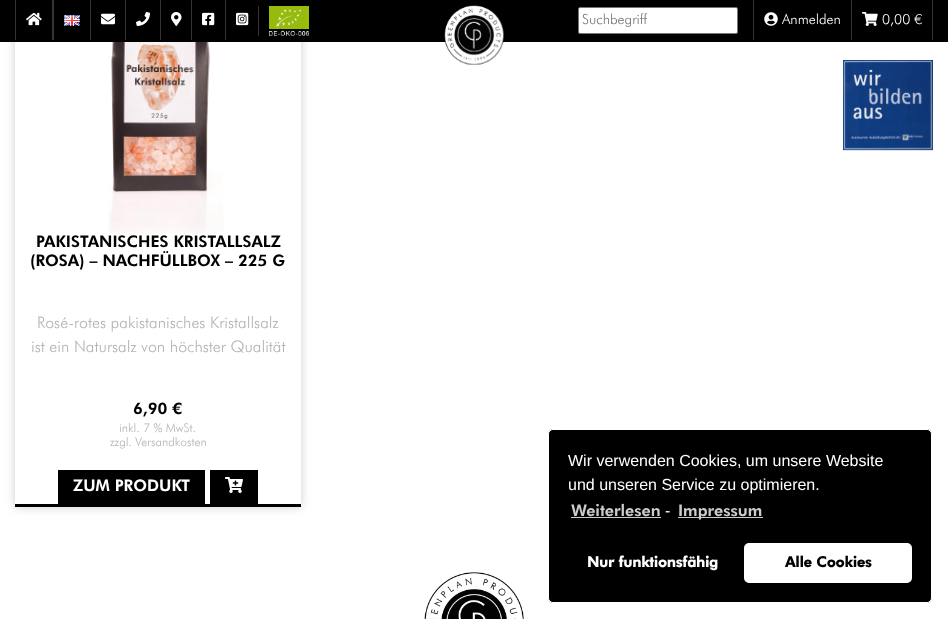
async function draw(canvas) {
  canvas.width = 948;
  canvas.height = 619;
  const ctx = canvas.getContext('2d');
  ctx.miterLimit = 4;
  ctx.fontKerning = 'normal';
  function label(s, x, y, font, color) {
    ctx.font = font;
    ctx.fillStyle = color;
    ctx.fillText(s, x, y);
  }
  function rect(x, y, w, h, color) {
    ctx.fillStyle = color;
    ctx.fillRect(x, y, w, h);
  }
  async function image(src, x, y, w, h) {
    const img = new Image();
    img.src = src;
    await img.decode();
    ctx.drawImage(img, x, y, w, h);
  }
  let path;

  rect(0, 0, 948, 619, '#fff');
  ctx.save();
  path = new Path2D('M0 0H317V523H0ZM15-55H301V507H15Z');
  ctx.clip(path, 'evenodd');
  ctx.fillStyle = '#00000033';
  ctx.filter = 'blur(5px)';
  ctx.beginPath();
  ctx.rect(15, -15, 286, 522);
  ctx.fill();
  ctx.filter = 'none';
  ctx.restore();
  rect(0, 0, 948, 42, '#000');
  await image('assets/img1.png', 444, 5, 60, 60);
  rect(15, 0, 1, 40, '#343434');
  await image('assets/img2.png', 26, 12, 16, 14);
  rect(52, 0, 2, 40, '#343434');
  await image('assets/img3.png', 64, 15, 16, 11);
  rect(90, 0, 1, 40, '#343434');
  await image('assets/img4.png', 101, 13, 14, 12);
  rect(125, 0, 1, 40, '#343434');
  await image('assets/img5.png', 136, 12, 14, 14);
  rect(160, 0, 1, 40, '#343434');
  await image('assets/img6.png', 171, 12, 11, 14);
  rect(191, 0, 1, 40, '#343434');
  await image('assets/img7.png', 202, 12, 13, 14);
  rect(225, 0, 1, 40, '#343434');
  await image('assets/img8.png', 236, 12, 13, 14);
  rect(258, 6, 1, 30, '#343434');
  await image('assets/img9.png', 269, 6, 40, 30);
  ctx.fillStyle = '#fff';
  ctx.beginPath();
  ctx.roundRect(578.5, 7.5, 159, 26, 1.5);
  ctx.fill();
  ctx.strokeStyle = '#767676';
  ctx.stroke();
  label('Suchbegriff', 582, 24, '14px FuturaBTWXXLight', '#757575');
  rect(753, 0, 1, 40, '#343434');
  await image('assets/img10.png', 764, 12, 14, 14);
  label('Anmelden', 782, 24, '14px FuturaBTWXXLight', '#fff');
  rect(932, 0, 1, 40, '#343434');
  rect(851, 0, 1, 40, '#343434');
  await image('assets/img11.png', 862, 12, 16, 14);
  label('0,00 €', 882, 24, '14px FuturaBTWXXLight', '#fff');
  await image('assets/img12.png', 843, 60, 90, 91);
  rect(15, 504, 286, 3, '#000');
  await image('assets/img13.png', 108, 42, 116, 192);
  label('PAKISTANISCHES KRISTALLSALZ', 36, 247, '16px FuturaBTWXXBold', '#000');
  label('(ROSA) – NACHFÜLLBOX – 225 G', 30, 266, '16px FuturaBTWXXBold', '#000');
  label('Rosé-rotes pakistanisches Kristallsalz', 37, 328, '16px FuturaBTWXXLight', '#b4b4b4');
  label('ist ein Natursalz von höchster Qualität', 31, 352, '16px FuturaBTWXXLight', '#b4b4b4');
  label('6,90 €', 133, 414, '16px FuturaBTWXXBold', '#000');
  label('inkl. 7 % MwSt.', 119, 432, '12px FuturaBTWXXLight', '#b4b4b4');
  label('zzgl. Versandkosten', 110, 446, '12px FuturaBTWXXLight', '#b4b4b4');
  rect(58, 470, 147, 34, '#000');
  label('ZUM PRODUKT', 73, 491, '16px FuturaBTWXXBold', '#fff');
  rect(210, 470, 48, 34, '#000');
  await image('assets/img14.png', 225, 477, 18, 16);
  ctx.beginPath();
  ctx.roundRect(548.5, 429.5, 383, 173, 4.5);
  ctx.fill();
  ctx.strokeStyle = '#fff';
  ctx.stroke();
  label('Wir verwenden Cookies, um unsere Website', 568, 466, '16px Liberation Sans', '#fff');
  label('und unseren Service zu optimieren.', 568, 490, '16px Liberation Sans', '#fff');
  label('Weiterlesen', 571, 516, '16px FuturaBTWXXBold', '#ccc');
  rect(571, 517, 90, 1, '#ccc');
  label('-', 665, 516, '16px Liberation Sans', '#fff');
  rect(678, 517, 85, 1, '#ccc');
  label('Impressum', 678, 516, '16px FuturaBTWXXBold', '#ccc');
  label('Nur funktionsfähig', 587, 567, 'bold 14.5px FuturaBTWXXBold', '#fff');
  ctx.beginPath();
  ctx.roundRect(745, 544, 166, 38, 4);
  ctx.fill();
  ctx.lineWidth = 2;
  ctx.stroke();
  label('Alle Cookies', 785, 567, 'bold 14.5px FuturaBTWXXBold', '#000');
  await image('assets/img15.png', 424, 572, 100, 47);
}

draw(document.querySelector('canvas'));
